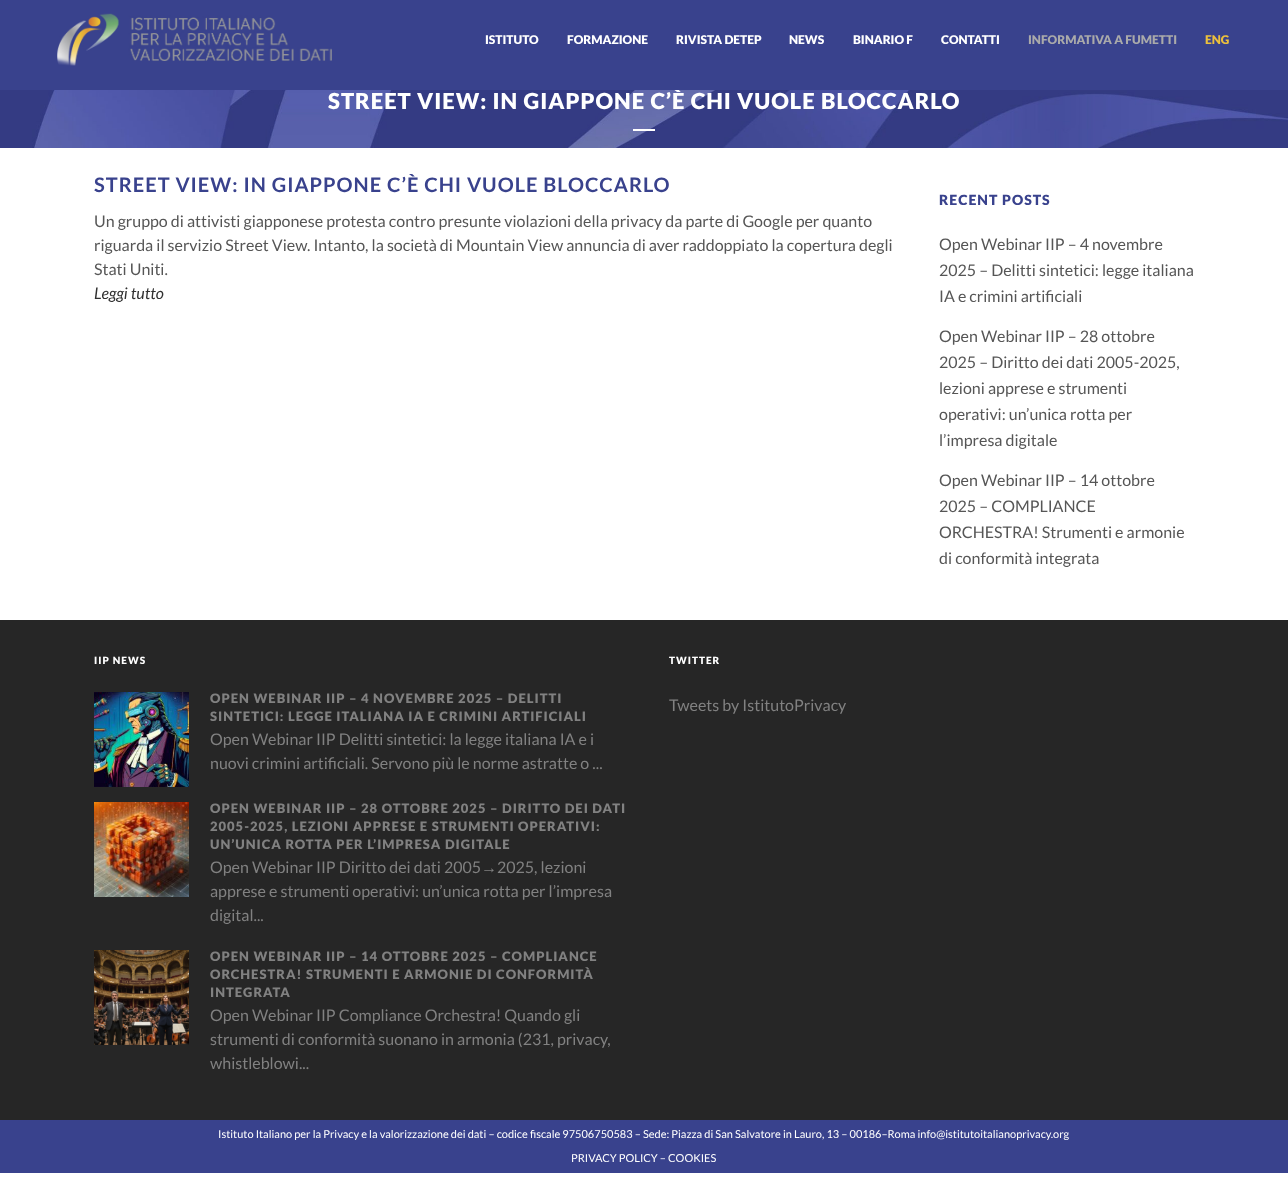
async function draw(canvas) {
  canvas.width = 1288;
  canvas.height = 1177;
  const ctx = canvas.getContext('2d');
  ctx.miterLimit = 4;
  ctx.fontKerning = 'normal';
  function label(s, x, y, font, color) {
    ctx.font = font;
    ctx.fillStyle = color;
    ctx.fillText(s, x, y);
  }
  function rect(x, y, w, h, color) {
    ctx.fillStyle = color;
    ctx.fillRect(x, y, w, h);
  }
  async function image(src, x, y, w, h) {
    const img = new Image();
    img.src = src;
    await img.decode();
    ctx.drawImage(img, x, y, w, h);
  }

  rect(0, 0, 1288, 1177, '#fff');
  await image('assets/img2.png', 0, 90, 1288, 58);
  ctx.letterSpacing = '1px';
  label('STREET VIEW: IN GIAPPONE C’È CHI VUOLE BLOCCARLO', 328, 109, '900 22px Lato', '#fff');
  rect(0, 0, 1288, 90, '#39428d');
  await image('assets/img1.png', 57, 13, 275, 53);
  ctx.letterSpacing = '0px';
  label('ISTITUTO', 485, 44, '900 12px Lato', '#fff');
  label('FORMAZIONE', 567, 44, '900 12px Lato', '#fff');
  label('RIVISTA DETEP', 676, 44, '900 12px Lato', '#fff');
  label('NEWS', 789, 44, '900 12px Lato', '#fff');
  label('BINARIO F', 853, 44, '900 12px Lato', '#fff');
  label('CONTATTI', 941, 44, '900 12px Lato', '#fff');
  label('INFORMATIVA A FUMETTI', 1028, 44, '900 12px Lato', '#aaa');
  label('ENG', 1205, 44, '900 12px Lato', '#ecc03c');
  rect(633, 129, 22, 2, '#fff');
  ctx.letterSpacing = '1px';
  label('STREET VIEW: IN GIAPPONE C’È CHI VUOLE BLOCCARLO', 94, 192, 'bold 20px Lato', '#39428d');
  ctx.letterSpacing = '0px';
  label('Un gruppo di attivisti giapponese protesta contro presunte violazioni della privacy da parte di Google per quanto', 94, 227, '16px Lato', '#565656');
  label('riguarda il servizio Street View. Intanto, la società di Mountain View annuncia di aver raddoppiato la copertura degli', 94, 251, '16px Lato', '#565656');
  label('Stati Uniti.', 94, 275, '16px Lato', '#565656');
  label('Leggi tutto', 94, 299, 'italic 16px Lato', '#303030');
  ctx.letterSpacing = '1px';
  label('RECENT POSTS', 939, 205, '900 14px Lato', '#39428d');
  ctx.letterSpacing = '0px';
  label('Open Webinar IIP – 4 novembre', 939, 250, '16px Lato', '#565656');
  label('2025 – Delitti sintetici: legge italiana', 939, 276, '16px Lato', '#565656');
  label('IA e crimini artificiali', 939, 302, '16px Lato', '#565656');
  label('Open Webinar IIP – 28 ottobre', 939, 342, '16px Lato', '#565656');
  label('2025 – Diritto dei dati 2005-2025,', 939, 368, '16px Lato', '#565656');
  label('lezioni apprese e strumenti', 939, 394, '16px Lato', '#565656');
  label('operativi: un’unica rotta per', 939, 420, '16px Lato', '#565656');
  label('l’impresa digitale', 939, 446, '16px Lato', '#565656');
  label('Open Webinar IIP – 14 ottobre', 939, 486, '16px Lato', '#565656');
  label('2025 – COMPLIANCE', 939, 512, '16px Lato', '#565656');
  label('ORCHESTRA! Strumenti e armonie', 939, 538, '16px Lato', '#565656');
  label('di conformità integrata', 939, 564, '16px Lato', '#565656');
  rect(0, 620, 1288, 500, '#262626');
  ctx.letterSpacing = '1px';
  label('IIP NEWS', 94, 664, '900 10px Lato', '#fff');
  await image('assets/img3.png', 94, 692, 95, 95);
  label('OPEN WEBINAR IIP – 4 NOVEMBRE 2025 – DELITTI', 210, 703, '900 13px Lato', '#818181');
  label('SINTETICI: LEGGE ITALIANA IA E CRIMINI ARTIFICIALI', 210, 721, '900 13px Lato', '#818181');
  ctx.letterSpacing = '0px';
  label('Open Webinar IIP Delitti sintetici: la legge italiana IA e i', 210, 745, '16px Lato', '#818181');
  label('nuovi crimini artificiali. Servono più le norme astratte o ...', 210, 769, '16px Lato', '#818181');
  await image('assets/img4.png', 94, 802, 95, 95);
  ctx.letterSpacing = '1px';
  label('OPEN WEBINAR IIP – 28 OTTOBRE 2025 – DIRITTO DEI DATI', 210, 813, '900 13px Lato', '#818181');
  label('2005-2025, LEZIONI APPRESE E STRUMENTI OPERATIVI:', 210, 831, '900 13px Lato', '#818181');
  label('UN’UNICA ROTTA PER L’IMPRESA DIGITALE', 210, 849, '900 13px Lato', '#818181');
  ctx.letterSpacing = '0px';
  label('Open Webinar IIP Diritto dei dati 2005', 210, 873, '16px Lato', '#818181');
  label('→', 481, 873, '16px Liberation Sans', '#818181');
  label('2025, lezioni', 497, 873, '16px Lato', '#818181');
  label('apprese e strumenti operativi: un’unica rotta per l’impresa', 210, 897, '16px Lato', '#818181');
  label('digital...', 210, 921, '16px Lato', '#818181');
  await image('assets/img5.png', 94, 950, 95, 95);
  ctx.letterSpacing = '1px';
  label('OPEN WEBINAR IIP – 14 OTTOBRE 2025 – COMPLIANCE', 210, 961, '900 13px Lato', '#818181');
  label('ORCHESTRA! STRUMENTI E ARMONIE DI CONFORMITÀ', 210, 979, '900 13px Lato', '#818181');
  label('INTEGRATA', 210, 997, '900 13px Lato', '#818181');
  ctx.letterSpacing = '0px';
  label('Open Webinar IIP Compliance Orchestra! Quando gli', 210, 1021, '16px Lato', '#818181');
  label('strumenti di conformità suonano in armonia (231, privacy,', 210, 1045, '16px Lato', '#818181');
  label('whistleblowi...', 210, 1069, '16px Lato', '#818181');
  ctx.letterSpacing = '1px';
  label('TWITTER', 669, 664, '900 10px Lato', '#fff');
  ctx.letterSpacing = '0px';
  label('Tweets by IstitutoPrivacy', 669, 711, '16px Lato', '#818181');
  rect(0, 1120, 1288, 53, '#39428d');
  label('Istituto Italiano per la Privacy e la valorizzazione dei dati – codice fiscale 97506750583 – Sede: Piazza di San Salvatore in Lauro, 13 – 00186–Roma info@istitutoitalianoprivacy.org', 218, 1138, '11px Lato', '#fff');
  label('PRIVACY POLICY – COOKIES', 571, 1162, '11px Lato', '#fff');
}

draw(document.querySelector('canvas'));
